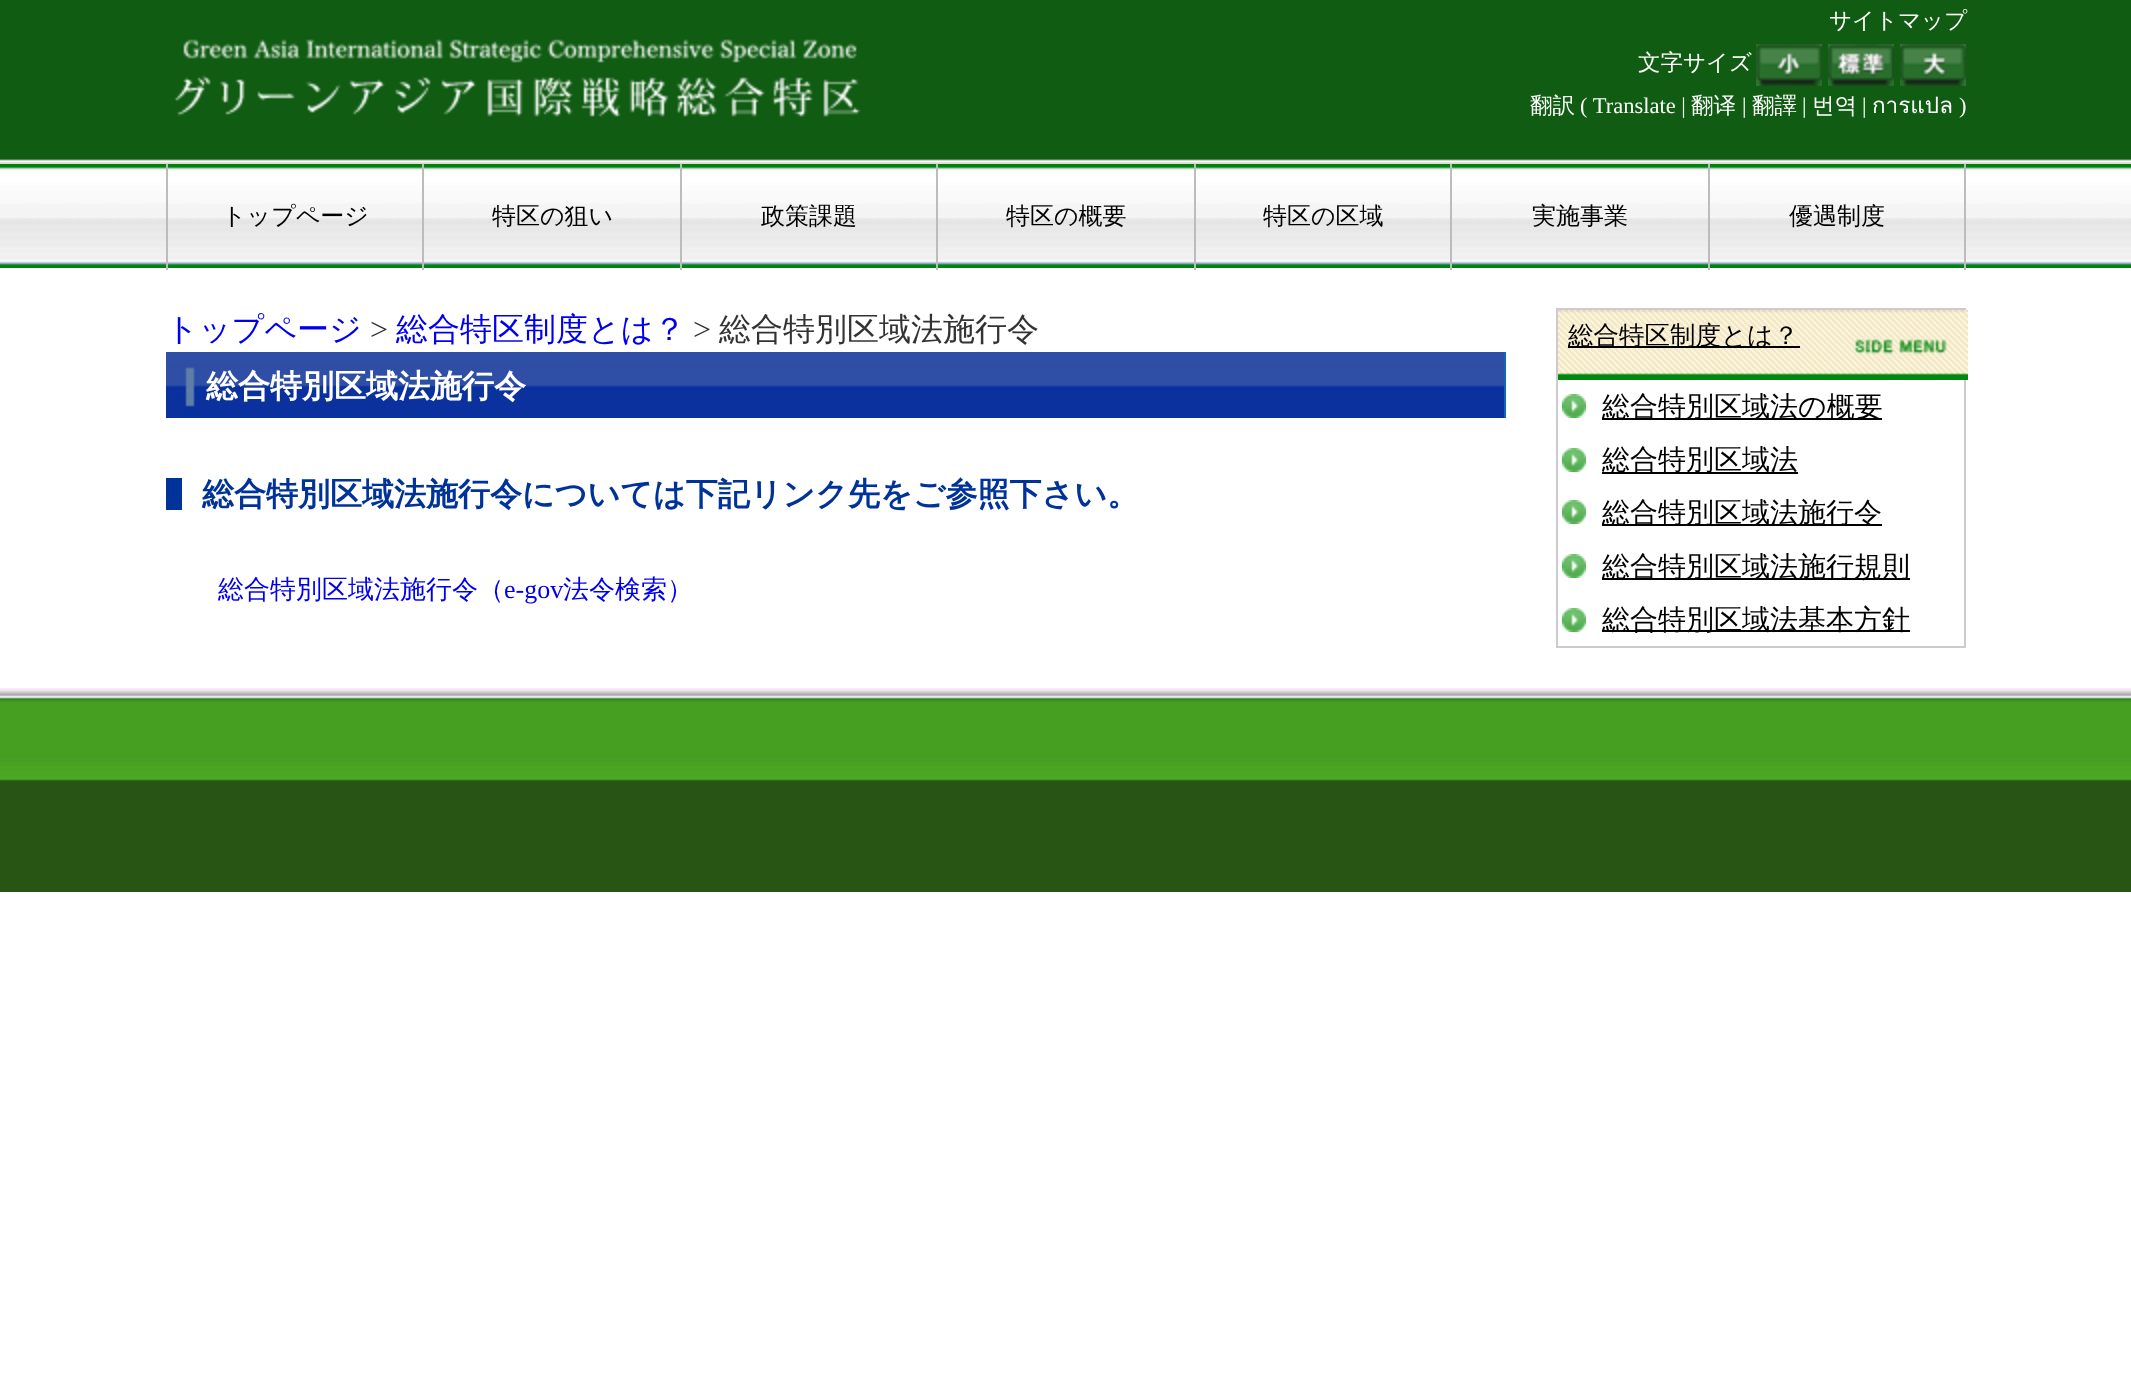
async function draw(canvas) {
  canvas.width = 2131;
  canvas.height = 1378;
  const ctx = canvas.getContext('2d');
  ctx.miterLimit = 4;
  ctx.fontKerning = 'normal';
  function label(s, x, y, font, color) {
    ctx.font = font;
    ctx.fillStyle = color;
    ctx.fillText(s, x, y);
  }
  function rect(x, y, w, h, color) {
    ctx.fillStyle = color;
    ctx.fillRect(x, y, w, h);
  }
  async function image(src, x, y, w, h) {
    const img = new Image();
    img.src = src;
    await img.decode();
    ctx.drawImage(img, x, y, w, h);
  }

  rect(0, 0, 2131, 1378, '#fff');
  await image('assets/img1.png', 0, 0, 2131, 164);
  await image('assets/img2.png', 174, 39, 687, 78);
  label('サイトマップ', 1829, 28, '500 22.5px WenQuanYi Zen Hei', '#fff');
  label('文字サイズ', 1638, 70, '500 22.5px WenQuanYi Zen Hei', '#fff');
  await image('assets/img3.png', 1756, 44, 66, 42);
  await image('assets/img4.png', 1828, 44, 66, 42);
  await image('assets/img5.png', 1900, 44, 66, 42);
  label('翻訳', 1530, 113, '500 22.5px WenQuanYi Zen Hei', '#fff');
  label('( Translate |', 1580, 113, '22.5px Liberation Serif', '#fff');
  label('翻译', 1691, 113, '500 22.5px WenQuanYi Zen Hei', '#fff');
  label('|', 1742, 113, '22.5px Liberation Serif', '#fff');
  label('翻譯', 1752, 113, '500 22.5px WenQuanYi Zen Hei', '#fff');
  label('|', 1802, 113, '22.5px Liberation Serif', '#fff');
  label('번역', 1812, 113, '500 22.5px WenQuanYi Zen Hei', '#fff');
  label('|', 1862, 113, '22.5px Liberation Serif', '#fff');
  label('การแปล', 1872, 113, '22.5px Loma', '#fff');
  label(')', 1959, 113, '22.5px Liberation Serif', '#fff');
  await image('assets/img6.png', 0, 164, 2131, 104);
  rect(166, 164, 2, 106, '#bcbcbc');
  label('トップページ', 222, 224, '500 24px WenQuanYi Zen Hei', '#000');
  rect(422, 164, 2, 106, '#bcbcbc');
  label('特区の狙い', 492, 224, '500 24px WenQuanYi Zen Hei', '#000');
  rect(680, 164, 2, 106, '#bcbcbc');
  label('政策課題', 761, 224, '500 24px WenQuanYi Zen Hei', '#000');
  rect(936, 164, 2, 106, '#bcbcbc');
  label('特区の概要', 1006, 224, '500 24px WenQuanYi Zen Hei', '#000');
  rect(1194, 164, 2, 106, '#bcbcbc');
  label('特区の区域', 1263, 224, '500 24px WenQuanYi Zen Hei', '#000');
  rect(1450, 164, 2, 106, '#bcbcbc');
  label('実施事業', 1532, 224, '500 24px WenQuanYi Zen Hei', '#000');
  rect(1964, 164, 2, 106, '#bcbcbc');
  rect(1708, 164, 2, 106, '#bcbcbc');
  label('優遇制度', 1789, 224, '500 24px WenQuanYi Zen Hei', '#000');
  label('トップページ', 166, 340, '500 32px WenQuanYi Zen Hei', '#00e');
  label('>', 370, 340, '32px Liberation Serif', '#333');
  label('総合特区制度とは？', 396, 340, '500 32px WenQuanYi Zen Hei', '#00e');
  label('>', 693, 340, '32px Liberation Serif', '#333');
  label('総合特別区域法施行令', 719, 340, '500 32px WenQuanYi Zen Hei', '#333');
  rect(1504, 352, 2, 66, '#1067b6');
  await image('assets/img7.png', 166, 352, 1338, 66);
  label('総合特別区域法施行令', 206, 397, 'bold 32px WenQuanYi Zen Hei', '#fff');
  rect(166, 478, 16, 32, '#039');
  label('総合特別区域法施行令については下記リンク先をご参照下さい。', 202, 505, 'bold 32px WenQuanYi Zen Hei', '#039');
  label('総合特別区域法施行令（', 218, 598, '500 26px WenQuanYi Zen Hei', '#00e');
  label('e-gov', 504, 598, '26px Liberation Serif', '#00e');
  label('法令検索）', 563, 598, '500 26px WenQuanYi Zen Hei', '#00e');
  ctx.strokeStyle = '#ccc';
  ctx.lineWidth = 2;
  ctx.strokeRect(1557, 309, 408, 338);
  await image('assets/img8.png', 1558, 310, 410, 70);
  rect(1568, 346, 232, 2, '#000');
  label('総合特区制度とは？', 1568, 344, '500 25.5px WenQuanYi Zen Hei', '#000');
  await image('assets/img9.png', 1562, 394, 24, 24);
  rect(1602, 418, 280, 2, '#000');
  label('総合特別区域法の概要', 1602, 416, '500 28px WenQuanYi Zen Hei', '#000');
  await image('assets/img9.png', 1562, 448, 24, 24);
  rect(1602, 472, 196, 2, '#000');
  label('総合特別区域法', 1602, 469, '500 28px WenQuanYi Zen Hei', '#000');
  await image('assets/img9.png', 1562, 500, 24, 24);
  rect(1602, 524, 280, 2, '#000');
  label('総合特別区域法施行令', 1602, 522, '500 28px WenQuanYi Zen Hei', '#000');
  await image('assets/img9.png', 1562, 554, 24, 24);
  rect(1602, 578, 308, 2, '#000');
  label('総合特別区域法施行規則', 1602, 576, '500 28px WenQuanYi Zen Hei', '#000');
  await image('assets/img9.png', 1562, 608, 24, 24);
  rect(1602, 630, 308, 2, '#000');
  label('総合特別区域法基本方針', 1602, 629, '500 28px WenQuanYi Zen Hei', '#000');
  await image('assets/img10.png', 0, 688, 2131, 204);
}

draw(document.querySelector('canvas'));
